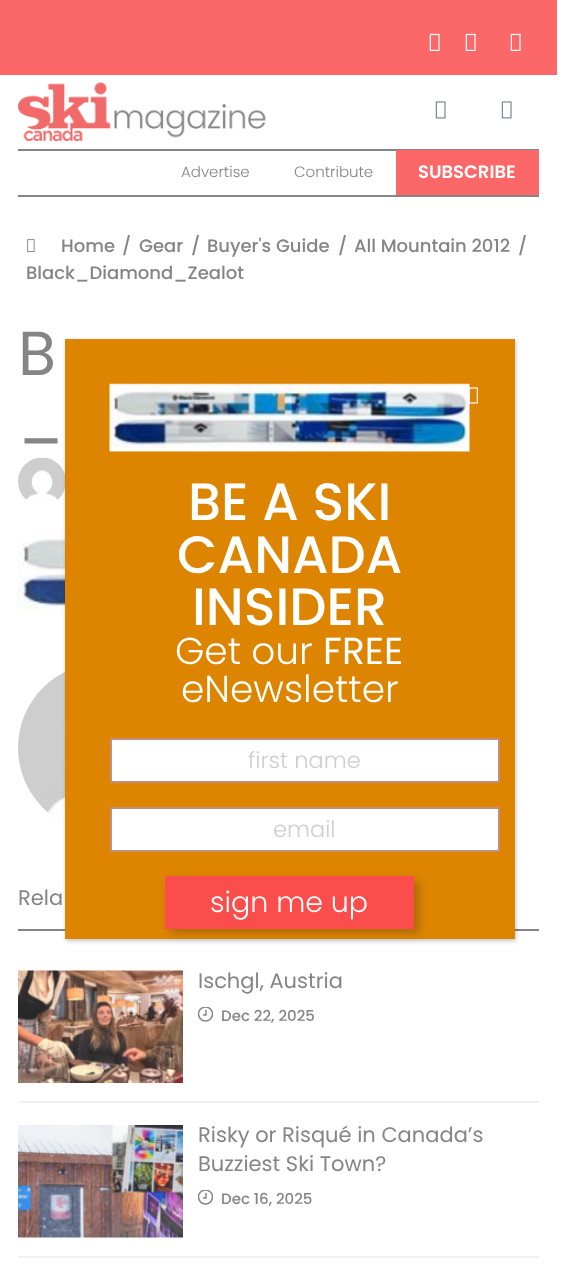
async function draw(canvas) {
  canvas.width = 578;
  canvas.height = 1276;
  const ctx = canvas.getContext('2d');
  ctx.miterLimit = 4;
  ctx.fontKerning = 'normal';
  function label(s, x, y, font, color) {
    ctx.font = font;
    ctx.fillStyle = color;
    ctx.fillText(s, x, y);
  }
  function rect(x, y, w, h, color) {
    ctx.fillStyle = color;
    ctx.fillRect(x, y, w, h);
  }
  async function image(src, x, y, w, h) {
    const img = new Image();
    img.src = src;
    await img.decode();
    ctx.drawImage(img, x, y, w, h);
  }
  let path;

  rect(0, 0, 578, 1276, '#fff');
  rect(0, 0, 557, 75, '#fc6868');
  await image('assets/img1.png', 429, 33, 11, 18);
  await image('assets/img1.png', 465, 33, 11, 18);
  await image('assets/img1.png', 510, 33, 11, 18);
  await image('assets/img2.png', 18, 82, 248, 59);
  await image('assets/img3.png', 435, 101, 11, 18);
  await image('assets/img3.png', 501, 101, 11, 18);
  rect(18, 149, 521, 2, '#858585');
  rect(18, 195, 521, 2, '#858585');
  label('Advertise', 181, 177, '300 15px Poppins', '#858585');
  label('Contribute', 294, 177, '300 15px Poppins', '#858585');
  rect(396, 150, 143, 45, '#fc6868');
  label('SUBSCRIBE', 418, 178, '600 18px Poppins', '#fff');
  await image('assets/img4.png', 27, 239, 8, 13);
  label('Home', 61, 252, '500 18px Poppins', '#858585');
  label('/', 122, 252, '500 18px Poppins', '#858585');
  label('Gear', 139, 252, '500 18px Poppins', '#858585');
  label('/', 191, 252, '500 18px Poppins', '#858585');
  label('Buyer\'s Guide', 207, 252, '500 18px Poppins', '#858585');
  label('/', 338, 252, '500 18px Poppins', '#858585');
  label('All Mountain 2012', 354, 252, '500 18px Poppins', '#858585');
  label('/', 518, 252, '500 18px Poppins', '#858585');
  label('Black_Diamond_Zealot', 26, 279, '500 18px Poppins', '#858585');
  label('B', 18, 375, '62px Poppins', '#858585');
  label('_', 18, 436, '62px Poppins', '#858585');
  await image('assets/img5.png', 18, 457, 47, 43);
  await image('assets/img6.png', 18, 529, 47, 83);
  await image('assets/img7.png', 18, 672, 47, 146);
  rect(18, 929, 521, 2, '#858585');
  label('Rela', 18, 905, '21px Poppins', '#858585');
  rect(18, 1101, 521, 2, '#f1f1f1');
  await image('assets/img8.png', 18, 970, 165, 113);
  label('Ischgl, Austria', 198, 988, '21px Poppins', '#858585');
  ctx.save();
  ctx.beginPath();
  ctx.rect(198, 1007, 15, 15);
  ctx.clip();
  ctx.beginPath();
  ctx.arc(205.5, 1014, 7, 0, 2 * Math.PI);
  ctx.strokeStyle = '#858585';
  ctx.lineWidth = 1.5;
  ctx.stroke();
  ctx.restore();
  path = new Path2D('M203 1015H206V1010');
  ctx.strokeStyle = '#858585';
  ctx.lineWidth = 1.5;
  ctx.stroke(path);
  label('Dec 22, 2025', 221, 1021, '500 15px Poppins', '#858585');
  rect(18, 1256, 521, 2, '#f1f1f1');
  await image('assets/img9.png', 18, 1125, 165, 113);
  label('Risky or Risqué in Canada’s', 198, 1142, '21px Poppins', '#858585');
  label('Buzziest Ski Town?', 198, 1171, '21px Poppins', '#858585');
  ctx.save();
  ctx.beginPath();
  ctx.rect(198, 1190, 15, 15);
  ctx.clip();
  ctx.beginPath();
  ctx.arc(205.5, 1197, 7, 0, 2 * Math.PI);
  ctx.stroke();
  ctx.restore();
  path = new Path2D('M203 1198H206V1193');
  ctx.stroke(path);
  label('Dec 16, 2025', 221, 1204, '500 15px Poppins', '#858585');
  ctx.fillStyle = '#0202023b';
  ctx.filter = 'blur(2px)';
  ctx.beginPath();
  ctx.rect(66, 341, 450, 600);
  ctx.fill();
  ctx.filter = 'none';
  rect(65, 339, 450, 600, '#dd8500');
  await image('assets/img11.png', 109, 383, 361, 69);
  await image('assets/img10.png', 469, 387, 9, 17);
  label('BE A SKI', 188, 520, '500 52.5px Poppins', '#fff');
  label('CANADA', 177, 573, '500 52.5px Poppins', '#fff');
  label('INSIDER', 192, 625, '500 52.5px Poppins', '#fff');
  label('Get our', 175, 664, '300 37.5px Poppins', '#fff');
  label('FREE', 323, 664, '37.5px Poppins', '#fff');
  label('eNewsletter', 181, 702, '300 37.5px Poppins', '#fff');
  ctx.beginPath();
  ctx.rect(111, 739, 388, 43);
  ctx.fill();
  ctx.strokeStyle = '#c18f7a';
  ctx.lineWidth = 2;
  ctx.stroke();
  label('first name', 248, 768, '300 22.5px Poppins', '#cecece');
  ctx.fillStyle = '#fff';
  ctx.beginPath();
  ctx.rect(111, 808, 388, 43);
  ctx.fill();
  ctx.stroke();
  label('email', 273, 837, '300 22.5px Poppins', '#cecece');
  ctx.fillStyle = '#17171740';
  ctx.filter = 'blur(4.5px)';
  ctx.beginPath();
  ctx.rect(170, 881, 249, 52);
  ctx.fill();
  ctx.filter = 'none';
  rect(165, 876, 249, 53, '#fc4d4d');
  label('sign me up', 210, 912, '300 28.5px Poppins', '#fff');
}

draw(document.querySelector('canvas'));
